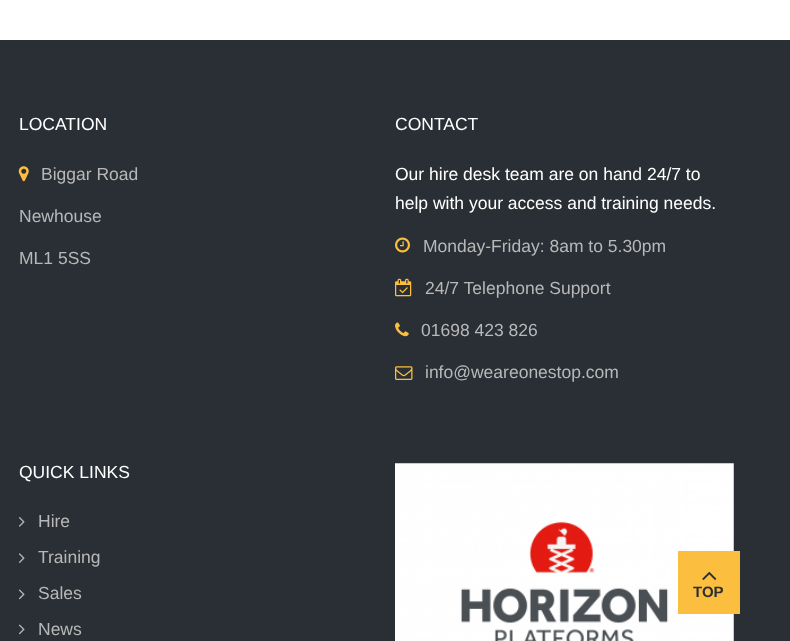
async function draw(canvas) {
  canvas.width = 790;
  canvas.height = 641;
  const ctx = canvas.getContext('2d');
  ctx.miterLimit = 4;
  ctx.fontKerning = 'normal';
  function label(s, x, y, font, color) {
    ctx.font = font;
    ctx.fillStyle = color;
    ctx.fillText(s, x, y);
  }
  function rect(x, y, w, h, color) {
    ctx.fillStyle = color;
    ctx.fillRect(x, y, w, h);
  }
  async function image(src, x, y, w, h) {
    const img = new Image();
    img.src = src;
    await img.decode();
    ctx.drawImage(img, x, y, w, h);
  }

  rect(0, 0, 790, 641, '#fff');
  rect(0, 40, 790, 601, '#2a2f35');
  label('LOCATION', 19, 130, '17.5px Liberation Sans', '#fff');
  await image('assets/img1.png', 18, 166, 11, 16);
  label('Biggar Road', 41, 180, '17.5px Liberation Sans', '#b8b8b8');
  label('Newhouse', 19, 222, '17.5px Liberation Sans', '#b8b8b8');
  label('ML1 5SS', 19, 264, '17.5px Liberation Sans', '#b8b8b8');
  label('CONTACT', 395, 130, '17.5px Liberation Sans', '#fff');
  label('Our hire desk team are on hand 24/7 to', 395, 180, '17.5px Liberation Sans', '#fff');
  label('help with your access and training needs.', 395, 209, '17.5px Liberation Sans', '#fff');
  await image('assets/img2.png', 395, 237, 15, 16);
  label('Monday-Friday: 8am to 5.30pm', 423, 252, '17.5px Liberation Sans', '#b8b8b8');
  await image('assets/img3.png', 395, 278, 17, 19);
  label('24/7 Telephone Support', 425, 294, '17.5px Liberation Sans', '#b8b8b8');
  await image('assets/img4.png', 395, 322, 14, 15);
  label('01698 423 826', 421, 336, '17.5px Liberation Sans', '#b8b8b8');
  await image('assets/img5.png', 395, 366, 18, 14);
  label('info@weareonestop.com', 425, 378, '17.5px Liberation Sans', '#b8b8b8');
  label('QUICK LINKS', 19, 478, '17.5px Liberation Sans', '#fff');
  await image('assets/img6.png', 18, 517, 7, 10);
  label('Hire', 38, 527, '17.5px Liberation Sans', '#b8b8b8');
  await image('assets/img7.png', 18, 553, 7, 10);
  label('Training', 38, 563, '17.5px Liberation Sans', '#b8b8b8');
  await image('assets/img8.png', 18, 589, 7, 11);
  label('Sales', 38, 599, '17.5px Liberation Sans', '#b8b8b8');
  await image('assets/img8.png', 18, 624, 7, 11);
  label('News', 38, 635, '17.5px Liberation Sans', '#b8b8b8');
  await image('assets/img9.png', 395, 463, 339, 178);
  rect(678, 551, 62, 63, '#fbbe3f');
  await image('assets/img10.png', 702, 571, 15, 9);
  label('TOP', 693, 597, 'bold 15px Liberation Sans', '#2a2f35');
}

draw(document.querySelector('canvas'));
